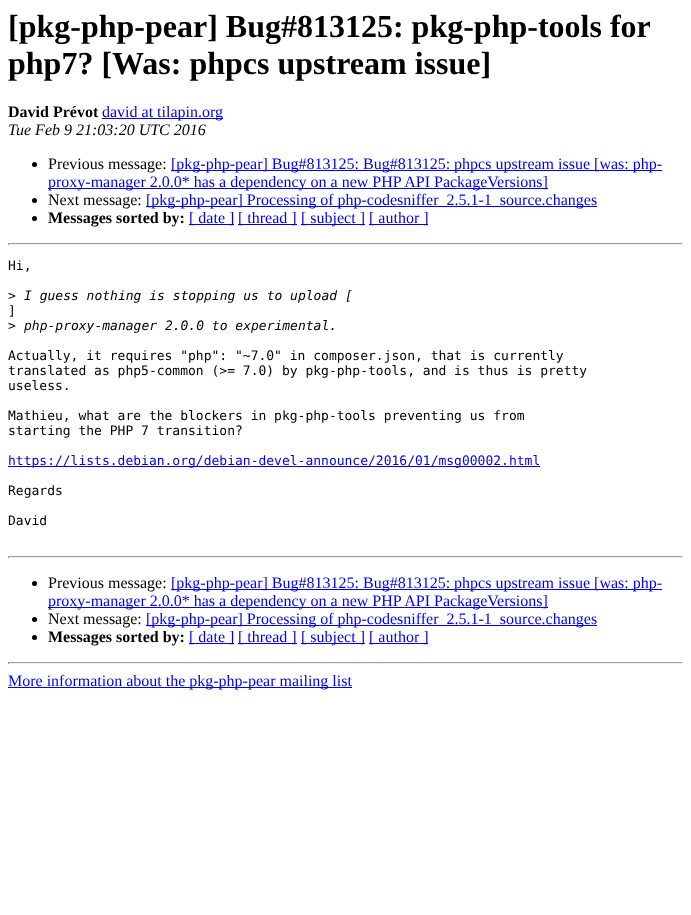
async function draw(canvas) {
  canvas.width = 691;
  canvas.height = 915;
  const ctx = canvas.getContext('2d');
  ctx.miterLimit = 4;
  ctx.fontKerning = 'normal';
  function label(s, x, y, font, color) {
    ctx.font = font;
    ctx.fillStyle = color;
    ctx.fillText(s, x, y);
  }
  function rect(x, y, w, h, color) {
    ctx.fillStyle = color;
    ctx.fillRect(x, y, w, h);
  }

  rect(0, 0, 691, 915, '#fff');
  label('[pkg-php-pear] Bug#813125: pkg-php-tools for', 8, 37, 'bold 32px Liberation Serif', '#000');
  label('php7? [Was: phpcs upstream issue]', 8, 74, 'bold 32px Liberation Serif', '#000');
  label('David Prévot', 8, 117, 'bold 16px Liberation Serif', '#000');
  rect(102, 118, 121, 1, '#00e');
  label('david at tilapin.org', 102, 117, '16px Liberation Serif', '#00e');
  label('Tue Feb 9 21:03:20 UTC 2016', 8, 135, 'italic 16px Liberation Serif', '#000');
  ctx.beginPath();
  ctx.arc(34.5, 164.5, 2.5, 0, 2 * Math.PI);
  ctx.fill();
  label('Previous message:', 48, 169, '16px Liberation Serif', '#000');
  rect(171, 170, 491, 1, '#00e');
  label('[pkg-php-pear] Bug#813125: Bug#813125: phpcs upstream issue [was: php-', 171, 169, '16px Liberation Serif', '#00e');
  rect(48, 188, 500, 1, '#00e');
  label('proxy-manager 2.0.0* has a dependency on a new PHP API PackageVersions]', 48, 187, '16px Liberation Serif', '#00e');
  ctx.fillStyle = '#000';
  ctx.beginPath();
  ctx.arc(34.5, 200.5, 2.5, 0, 2 * Math.PI);
  ctx.fill();
  label('Next message:', 48, 205, '16px Liberation Serif', '#000');
  rect(146, 206, 451, 1, '#00e');
  label('[pkg-php-pear] Processing of php-codesniffer_2.5.1-1_source.changes', 146, 205, '16px Liberation Serif', '#00e');
  ctx.fillStyle = '#000';
  ctx.beginPath();
  ctx.arc(34.5, 218.5, 2.5, 0, 2 * Math.PI);
  ctx.fill();
  label('Messages sorted by:', 48, 223, 'bold 16px Liberation Serif', '#000');
  rect(189, 224, 45, 1, '#00e');
  label('[ date ]', 189, 223, '16px Liberation Serif', '#00e');
  rect(238, 224, 59, 1, '#00e');
  label('[ thread ]', 238, 223, '16px Liberation Serif', '#00e');
  rect(301, 224, 64, 1, '#00e');
  label('[ subject ]', 301, 223, '16px Liberation Serif', '#00e');
  rect(369, 224, 59, 1, '#00e');
  label('[ author ]', 369, 223, '16px Liberation Serif', '#00e');
  rect(8, 243, 675, 1, '#9f9f9f');
  rect(682, 243, 1, 2, '#eee');
  rect(8, 244, 675, 1, '#eee');
  rect(8, 243, 1, 2, '#9f9f9f');
  label('Hi,', 8, 270, '13px DejaVu Sans Mono', '#000');
  label('>', 8, 300, '13px DejaVu Sans Mono', '#000');
  label('I guess nothing is stopping us to upload [', 24, 300, 'italic 13px DejaVu Sans Mono', '#000');
  label(']', 8, 315, '13px DejaVu Sans Mono', '#000');
  label('>', 8, 330, '13px DejaVu Sans Mono', '#000');
  label('php-proxy-manager 2.0.0 to experimental.', 24, 330, 'italic 13px DejaVu Sans Mono', '#000');
  label('Actually, it requires "php": "~7.0" in composer.json, that is currently', 8, 360, '13px DejaVu Sans Mono', '#000');
  label('translated as php5-common (>= 7.0) by pkg-php-tools, and is thus is pretty', 8, 375, '13px DejaVu Sans Mono', '#000');
  label('useless.', 8, 390, '13px DejaVu Sans Mono', '#000');
  label('Mathieu, what are the blockers in pkg-php-tools preventing us from', 8, 420, '13px DejaVu Sans Mono', '#000');
  label('starting the PHP 7 transition?', 8, 435, '13px DejaVu Sans Mono', '#000');
  rect(8, 466, 532, 1, '#00e');
  label('https://lists.debian.org/debian-devel-announce/2016/01/msg00002.html', 8, 465, '13px DejaVu Sans Mono', '#00e');
  label('Regards', 8, 495, '13px DejaVu Sans Mono', '#000');
  label('David', 8, 525, '13px DejaVu Sans Mono', '#000');
  rect(8, 556, 675, 1, '#9f9f9f');
  rect(682, 556, 1, 2, '#eee');
  rect(8, 557, 675, 1, '#eee');
  rect(8, 556, 1, 2, '#9f9f9f');
  ctx.fillStyle = '#000';
  ctx.beginPath();
  ctx.arc(34.5, 583.5, 2.5, 0, 2 * Math.PI);
  ctx.fill();
  label('Previous message:', 48, 588, '16px Liberation Serif', '#000');
  rect(171, 589, 491, 1, '#00e');
  label('[pkg-php-pear] Bug#813125: Bug#813125: phpcs upstream issue [was: php-', 171, 588, '16px Liberation Serif', '#00e');
  rect(48, 607, 500, 1, '#00e');
  label('proxy-manager 2.0.0* has a dependency on a new PHP API PackageVersions]', 48, 606, '16px Liberation Serif', '#00e');
  ctx.fillStyle = '#000';
  ctx.beginPath();
  ctx.arc(34.5, 619.5, 2.5, 0, 2 * Math.PI);
  ctx.fill();
  label('Next message:', 48, 624, '16px Liberation Serif', '#000');
  rect(146, 625, 451, 1, '#00e');
  label('[pkg-php-pear] Processing of php-codesniffer_2.5.1-1_source.changes', 146, 624, '16px Liberation Serif', '#00e');
  ctx.fillStyle = '#000';
  ctx.beginPath();
  ctx.arc(34.5, 637.5, 2.5, 0, 2 * Math.PI);
  ctx.fill();
  label('Messages sorted by:', 48, 642, 'bold 16px Liberation Serif', '#000');
  rect(189, 643, 45, 1, '#00e');
  label('[ date ]', 189, 642, '16px Liberation Serif', '#00e');
  rect(238, 643, 59, 1, '#00e');
  label('[ thread ]', 238, 642, '16px Liberation Serif', '#00e');
  rect(301, 643, 64, 1, '#00e');
  label('[ subject ]', 301, 642, '16px Liberation Serif', '#00e');
  rect(369, 643, 59, 1, '#00e');
  label('[ author ]', 369, 642, '16px Liberation Serif', '#00e');
  rect(8, 662, 675, 1, '#9f9f9f');
  rect(682, 662, 1, 2, '#eee');
  rect(8, 663, 675, 1, '#eee');
  rect(8, 662, 1, 2, '#9f9f9f');
  rect(8, 687, 344, 1, '#00e');
  label('More information about the pkg-php-pear mailing list', 8, 686, '16px Liberation Serif', '#00e');
}

draw(document.querySelector('canvas'));
